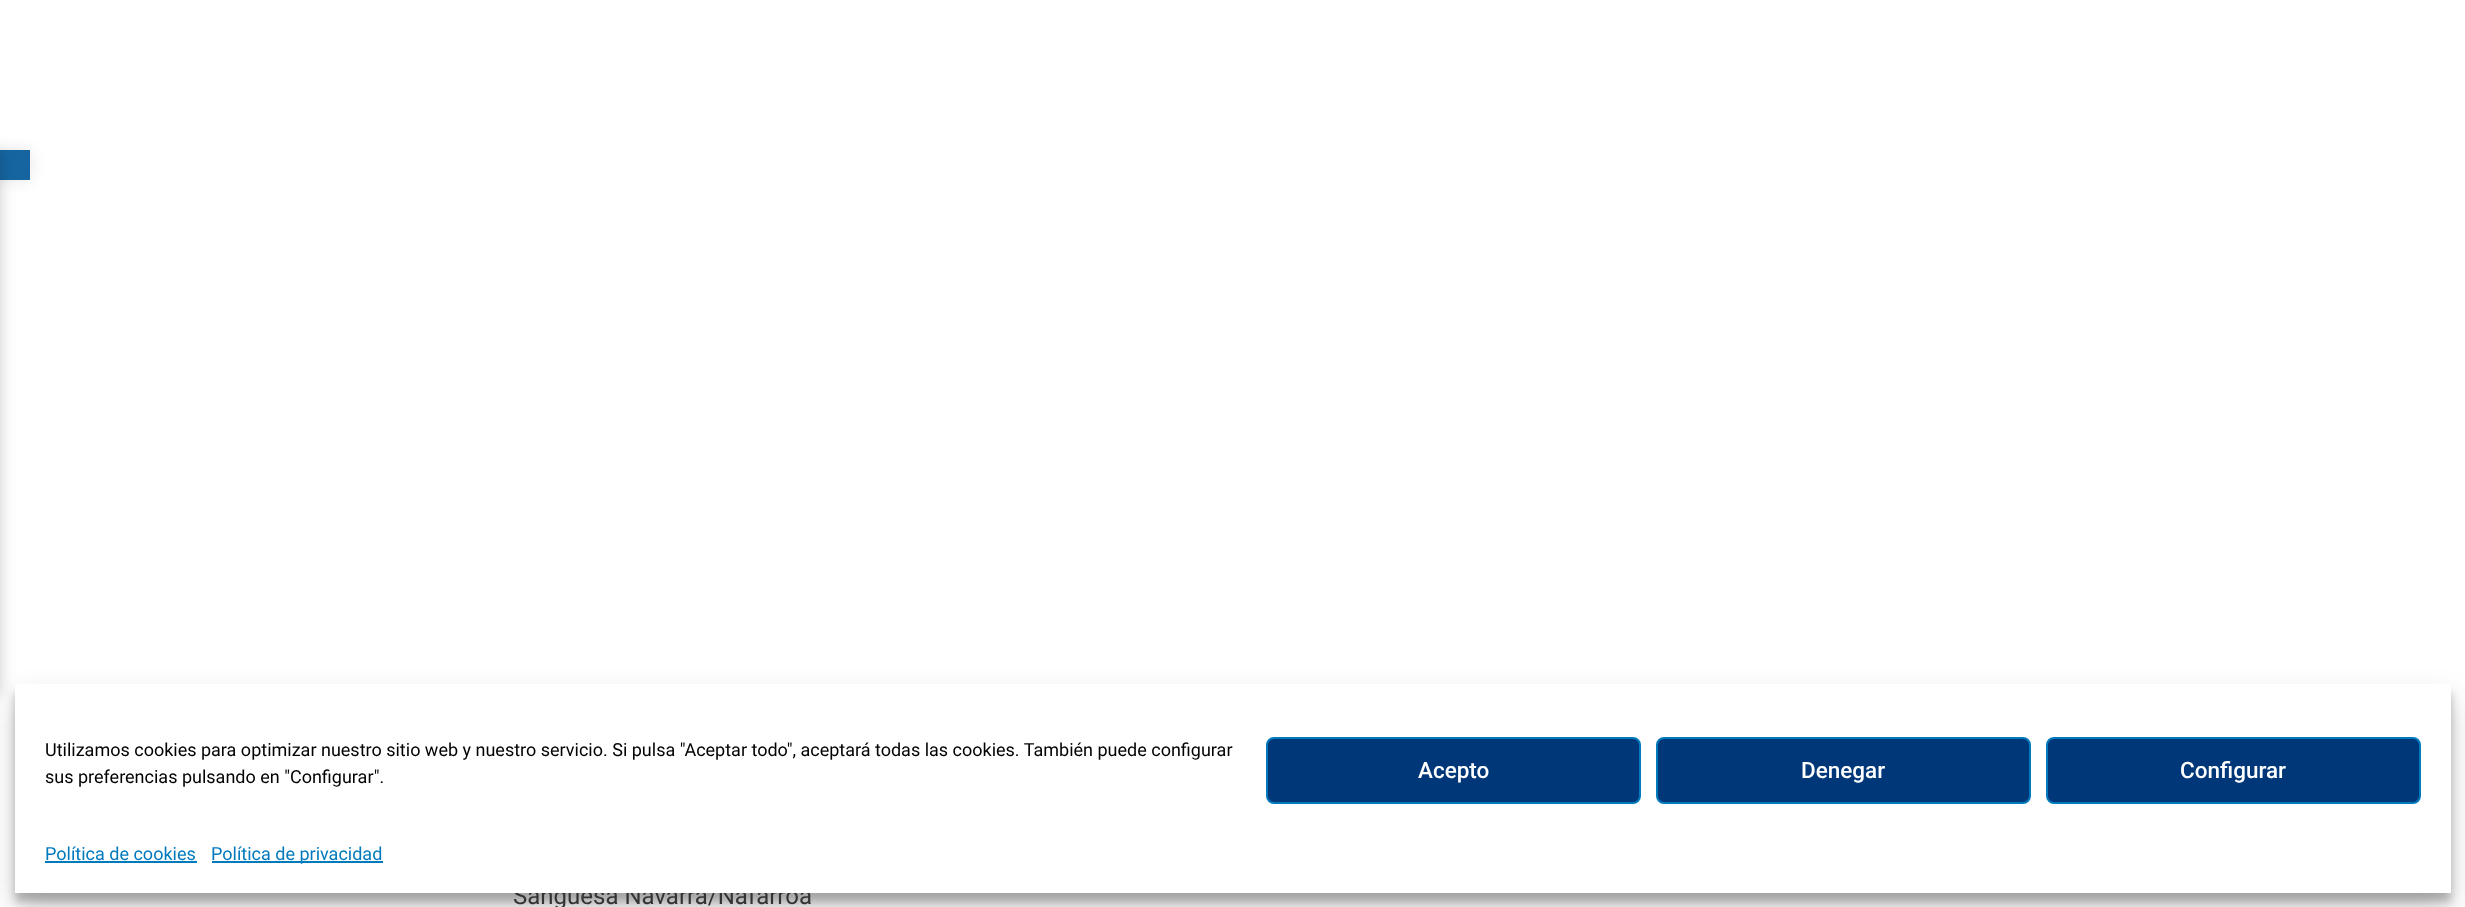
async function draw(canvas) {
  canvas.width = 2465;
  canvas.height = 907;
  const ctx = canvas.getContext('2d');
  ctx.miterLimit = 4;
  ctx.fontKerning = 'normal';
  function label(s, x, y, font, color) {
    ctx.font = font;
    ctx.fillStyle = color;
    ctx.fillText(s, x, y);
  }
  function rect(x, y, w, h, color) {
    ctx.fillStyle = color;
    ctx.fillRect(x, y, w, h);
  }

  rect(0, 0, 2465, 907, '#fff');
  ctx.fillStyle = '#0000001a';
  ctx.filter = 'blur(7.5px)';
  ctx.beginPath();
  ctx.rect(0, 150, 30, 30);
  ctx.fill();
  ctx.filter = 'none';
  rect(0, 150, 30, 30, '#1665a1');
  ctx.fillStyle = '#00000033';
  ctx.filter = 'blur(7.5px)';
  ctx.beginPath();
  ctx.rect(-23, 150, 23, 545);
  ctx.fill();
  ctx.filter = 'none';
  ctx.fillStyle = '#0000003b';
  ctx.filter = 'blur(4.5px)';
  ctx.beginPath();
  ctx.rect(15, 693, 2436, 209);
  ctx.fill();
  ctx.filter = 'none';
  ctx.fillStyle = '#00000030';
  ctx.filter = 'blur(15px)';
  ctx.beginPath();
  ctx.rect(15, 699, 2436, 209);
  ctx.fill();
  ctx.filter = 'none';
  label('Sangüesa Navarra/Nafarroa', 513, 904, '24px Roboto', '#333');
  rect(15, 684, 2436, 209, '#fff');
  label('Utilizamos cookies para optimizar nuestro sitio web y nuestro servicio. Si pulsa "Aceptar todo", aceptará todas las cookies. También puede configurar', 45, 756, '18px Roboto', '#000');
  label('sus preferencias pulsando en "Configurar".', 45, 783, '18px Roboto', '#000');
  ctx.fillStyle = '#003779';
  ctx.beginPath();
  ctx.roundRect(1267, 738, 373, 65, 7);
  ctx.fill();
  ctx.strokeStyle = '#007abd';
  ctx.lineWidth = 2;
  ctx.stroke();
  label('Acepto', 1418, 778, '500 22.5px Roboto', '#fff');
  ctx.fillStyle = '#003779';
  ctx.beginPath();
  ctx.roundRect(1657, 738, 373, 65, 7);
  ctx.fill();
  ctx.stroke();
  label('Denegar', 1801, 778, '500 22.5px Roboto', '#fff');
  ctx.fillStyle = '#003779';
  ctx.beginPath();
  ctx.roundRect(2047, 738, 373, 65, 7);
  ctx.fill();
  ctx.stroke();
  label('Configurar', 2180, 778, '500 22.5px Roboto', '#fff');
  label('Política de cookies', 45, 860, '18px Roboto', '#007abd');
  rect(45, 861, 152, 2, '#007abd');
  rect(212, 861, 171, 2, '#007abd');
  label('Política de privacidad', 211, 860, '18px Roboto', '#007abd');
}

draw(document.querySelector('canvas'));
